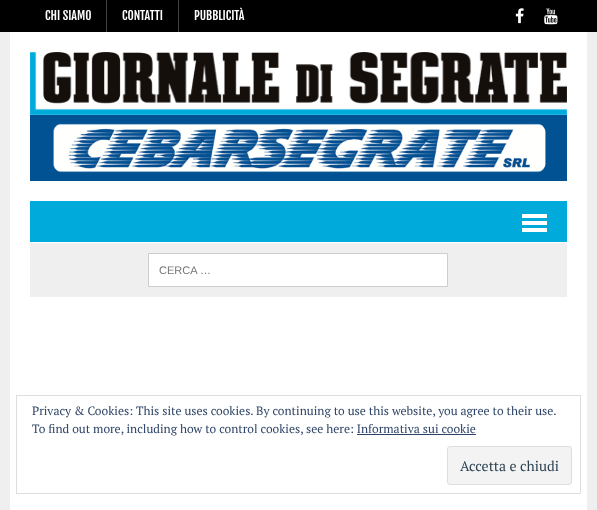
async function draw(canvas) {
  canvas.width = 597;
  canvas.height = 510;
  const ctx = canvas.getContext('2d');
  ctx.miterLimit = 4;
  ctx.fontKerning = 'normal';
  function label(s, x, y, font, color) {
    ctx.font = font;
    ctx.fillStyle = color;
    ctx.fillText(s, x, y);
  }
  function rect(x, y, w, h, color) {
    ctx.fillStyle = color;
    ctx.fillRect(x, y, w, h);
  }
  async function image(src, x, y, w, h) {
    const img = new Image();
    img.src = src;
    await img.decode();
    ctx.drawImage(img, x, y, w, h);
  }

  rect(0, 0, 597, 510, '#efefef');
  rect(0, 0, 597, 32, '#000');
  label('CHI SIAMO', 45, 20, '12px Fjalla One', '#fff');
  rect(106, 0, 1, 32, '#424242');
  label('CONTATTI', 122, 20, '12px Fjalla One', '#fff');
  rect(178, 0, 1, 32, '#424242');
  label('PUBBLICITÀ', 194, 20, '12px Fjalla One', '#fff');
  await image('assets/img1.png', 515, 8, 9, 16);
  await image('assets/img2.png', 544, 8, 14, 17);
  rect(10, 32, 577, 478, '#fff');
  await image('assets/img3.png', 30, 52, 537, 63);
  await image('assets/img4.png', 30, 115, 537, 66);
  rect(30, 201, 537, 41, '#00abdb');
  rect(522, 214, 25, 4, '#fff');
  rect(522, 221, 25, 4, '#fff');
  rect(522, 228, 25, 4, '#fff');
  rect(30, 243, 537, 54, '#efefef');
  ctx.fillStyle = '#fff';
  ctx.beginPath();
  ctx.rect(148.5, 253.5, 299, 33);
  ctx.fill();
  ctx.strokeStyle = '#cdcdcd';
  ctx.stroke();
  label('CERCA …', 159, 274, '11px Liberation Sans', '#757575');
  ctx.strokeStyle = '#dedede';
  ctx.strokeRect(16.5, 395.5, 564, 98);
  label('Privacy & Cookies: This site uses cookies. By continuing to use this website, you agree to their use.', 32, 415, '12px PT Serif', '#2e4467');
  label('To find out more, including how to control cookies, see here: Informativa sui cookie', 32, 433, '12px PT Serif', '#2e4467');
  rect(357, 434, 119, 1, '#2e4467');
  ctx.fillStyle = '#f3f3f3';
  ctx.beginPath();
  ctx.roundRect(447.5, 446.5, 124, 38, 2.5);
  ctx.fill();
  ctx.stroke();
  label('Accetta e chiudi', 460, 471, '14px PT Serif', '#2e4453');
}

draw(document.querySelector('canvas'));
